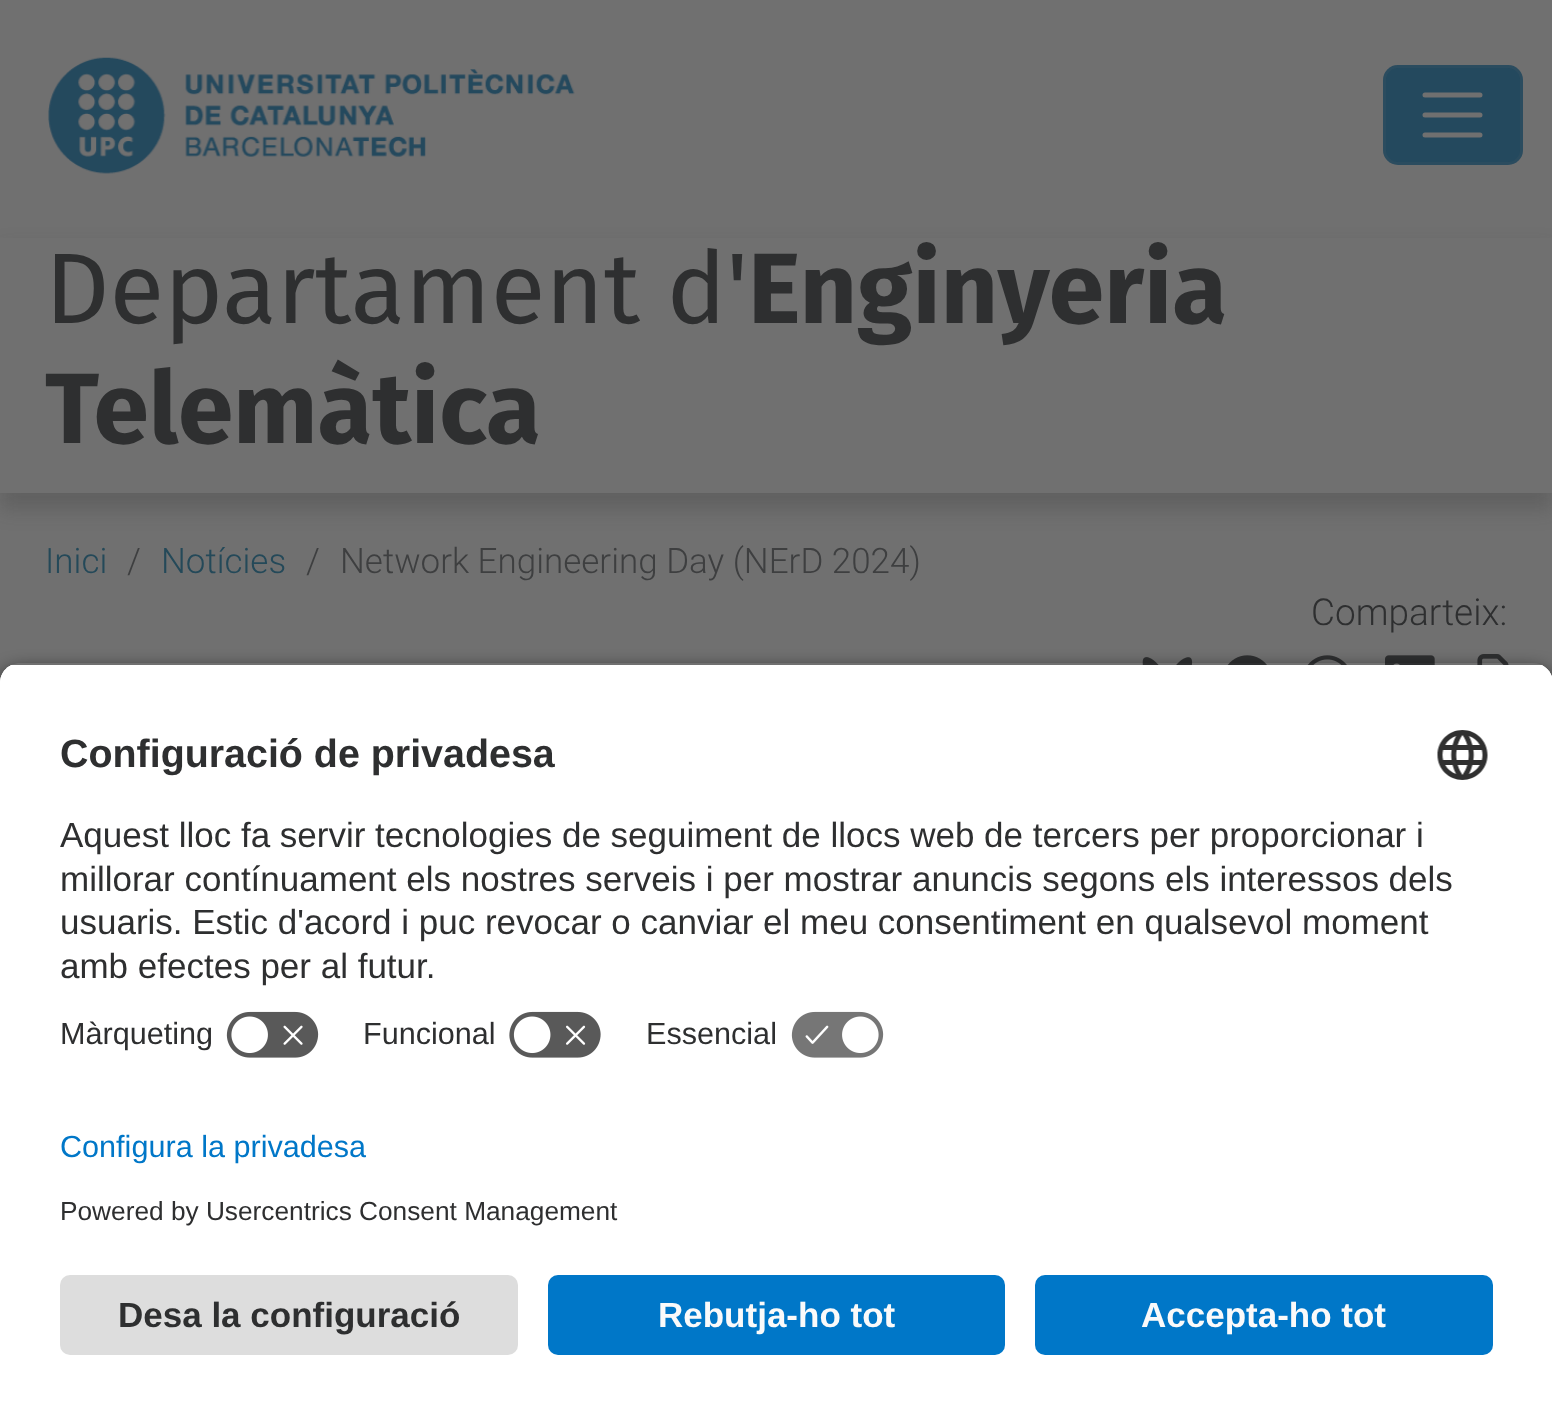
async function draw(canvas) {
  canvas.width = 1552;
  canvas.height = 1415;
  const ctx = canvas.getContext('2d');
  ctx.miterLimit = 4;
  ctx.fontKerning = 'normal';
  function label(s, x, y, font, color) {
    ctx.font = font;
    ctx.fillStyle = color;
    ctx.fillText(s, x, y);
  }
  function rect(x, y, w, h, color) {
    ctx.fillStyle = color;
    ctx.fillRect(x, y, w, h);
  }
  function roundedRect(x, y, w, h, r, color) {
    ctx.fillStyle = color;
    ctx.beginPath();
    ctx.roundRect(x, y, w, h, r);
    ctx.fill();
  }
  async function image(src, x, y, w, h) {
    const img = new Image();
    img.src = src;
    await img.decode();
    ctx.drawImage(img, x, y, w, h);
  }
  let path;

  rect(0, 0, 1552, 1415, '#707070');
  await image('assets/img1.png', 48, 57, 527, 117);
  roundedRect(1383, 65, 140, 100, 15, '#24495e');
  ctx.beginPath();
  ctx.roundRect(1384.5, 66.5, 137, 97, 13.5);
  ctx.strokeStyle = '#7070701a';
  ctx.lineWidth = 3;
  ctx.stroke();
  path = new Path2D('M1425 95H1480M1425 115H1480M1425 135H1480');
  ctx.strokeStyle = '#707070';
  ctx.lineWidth = 5;
  ctx.lineCap = 'round';
  ctx.stroke(path);
  ctx.fillStyle = '#24242433';
  ctx.filter = 'blur(10px)';
  ctx.beginPath();
  ctx.rect(0, 248, 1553, 262);
  ctx.fill();
  ctx.filter = 'none';
  rect(0, 238, 1552, 255, '#707070');
  label('Departament d\'', 45, 323, '100px Fira Sans', '#2e2f30');
  label('Enginyeria', 748, 323, 'bold 100px Fira Sans', '#2e2f30');
  label('Telemàtica', 45, 443, 'bold 100px Fira Sans', '#2e2f30');
  label('Inici', 45, 573, '300 35px Roboto', '#244959');
  label('/', 127, 573, '300 35px Roboto', '#3e3f40');
  label('Notícies', 161, 573, '300 35px Roboto', '#244959');
  label('/', 306, 573, '300 35px Roboto', '#3e3f40');
  label('Network Engineering Day (NErD 2024)', 340, 573, '300 35px Roboto', '#3e3f40');
  label('Comparteix:', 1311, 625, '300 37px Roboto', '#2e2f30');
  await image('assets/img2.png', 1142, 657, 51, 8);
  await image('assets/img3.png', 1227, 655, 40, 10);
  await image('assets/img4.png', 1307, 655, 40, 10);
  await image('assets/img5.png', 1385, 655, 50, 10);
  await image('assets/img6.png', 1477, 654, 32, 11);
  ctx.save();
  path = new Path2D('M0 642H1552V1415H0ZM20 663H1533C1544 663 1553 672 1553 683V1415H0V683C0 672 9 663 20 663Z');
  ctx.clip(path, 'evenodd');
  ctx.fillStyle = '#000000cc';
  ctx.filter = 'blur(9px)';
  ctx.beginPath();
  ctx.roundRect(0, 670, 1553, 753, 20);
  ctx.fill();
  ctx.filter = 'none';
  ctx.restore();
  ctx.save();
  path = new Path2D('M20 663H1533C1544 663 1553 672 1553 683V1100H0V683C0 672 9 663 20 663Z');
  ctx.clip(path);
  rect(0, 665, 1552, 435, '#fff');
  rect(0, 665, 1552, 335, '#fff');
  ctx.restore();
  label('Configuració de privadesa', 60, 767, 'bold 39.4px Liberation Sans', '#2e2f30');
  await image('assets/img7.png', 1437, 730, 51, 50);
  label('Aquest lloc fa servir tecnologies de seguiment de llocs web de tercers per proporcionar i', 60, 847, '35px Liberation Sans', '#2e2f30');
  label('millorar contínuament els nostres serveis i per mostrar anuncis segons els interessos dels', 60, 891, '35px Liberation Sans', '#2e2f30');
  label('usuaris. Estic d\'acord i puc revocar o canviar el meu consentiment en qualsevol moment', 60, 934, '35px Liberation Sans', '#2e2f30');
  label('amb efectes per al futur.', 60, 978, '35px Liberation Sans', '#2e2f30');
  label('Màrqueting', 60, 1044, '30.6px Liberation Sans', '#2e2f30');
  await image('assets/img8.png', 226, 1011, 93, 47);
  label('Funcional', 363, 1044, '30.6px Liberation Sans', '#2e2f30');
  await image('assets/img9.png', 509, 1011, 92, 47);
  label('Essencial', 646, 1044, '30.6px Liberation Sans', '#2e2f30');
  await image('assets/img10.png', 791, 1011, 93, 47);
  rect(0, 1100, 1552, 315, '#fff');
  label('Configura la privadesa', 60, 1157, '30.6px Liberation Sans', '#0077c8');
  label('Powered by Usercentrics Consent Management', 60, 1220, '26.25px Liberation Sans', '#2e2f30');
  roundedRect(60, 1275, 458, 80, 10, '#ddd');
  label('Desa la configuració', 118, 1327, 'bold 35px Liberation Sans', '#2e2f30');
  roundedRect(548, 1275, 457, 80, 10, '#0077c8');
  label('Rebutja-ho tot', 658, 1327, 'bold 35px Liberation Sans', '#fafafa');
  roundedRect(1035, 1275, 458, 80, 10, '#0077c8');
  label('Accepta-ho tot', 1141, 1327, 'bold 35px Liberation Sans', '#fafafa');
}

draw(document.querySelector('canvas'));
